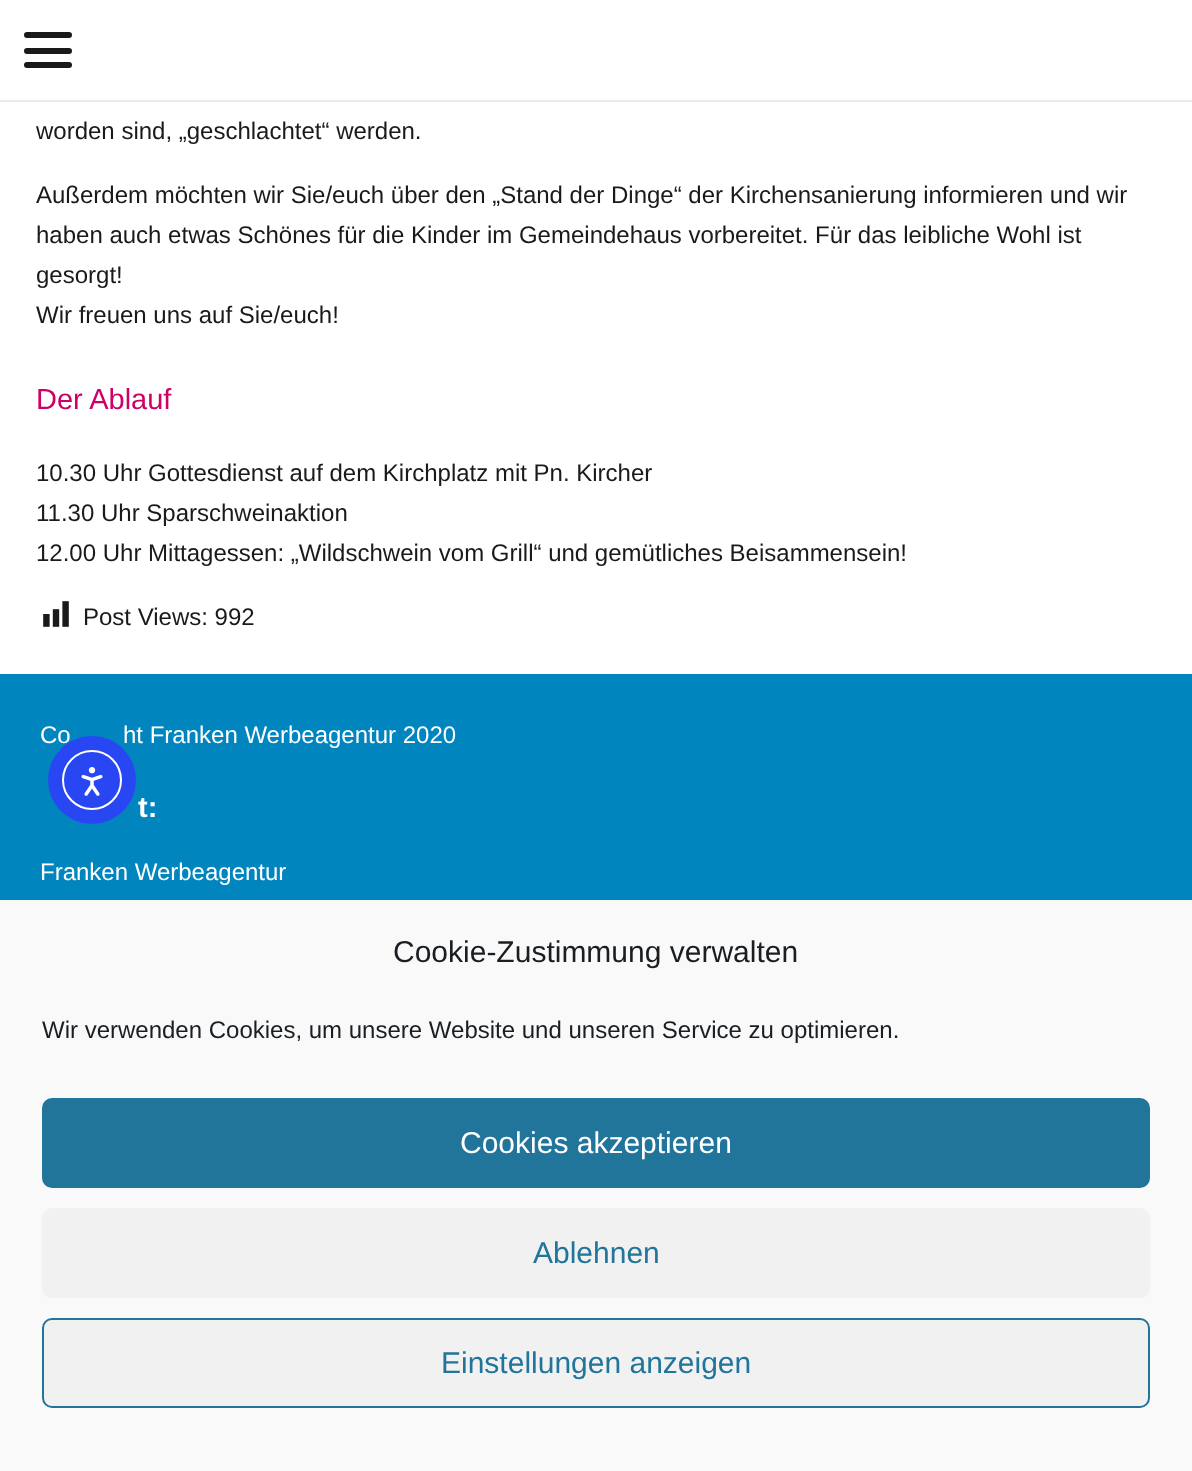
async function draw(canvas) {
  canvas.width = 1192;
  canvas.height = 1471;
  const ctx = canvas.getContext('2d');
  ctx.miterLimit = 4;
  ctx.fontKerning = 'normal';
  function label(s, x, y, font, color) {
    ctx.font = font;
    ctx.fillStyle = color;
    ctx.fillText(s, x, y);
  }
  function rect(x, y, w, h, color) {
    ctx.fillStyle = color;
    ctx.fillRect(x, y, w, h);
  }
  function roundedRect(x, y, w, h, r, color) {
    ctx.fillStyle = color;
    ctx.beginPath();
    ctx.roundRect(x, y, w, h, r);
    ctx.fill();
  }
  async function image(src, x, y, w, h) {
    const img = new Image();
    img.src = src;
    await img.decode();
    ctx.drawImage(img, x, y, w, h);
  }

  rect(0, 0, 1192, 1471, '#fff');
  rect(0, 100, 1192, 2, '#00000014');
  roundedRect(24, 48, 48, 6, 3, '#1a1a1a');
  roundedRect(24, 32, 48, 6, 3, '#1a1a1a');
  roundedRect(24, 62, 48, 6, 3, '#1a1a1a');
  label('worden sind, „geschlachtet“ werden.', 36, 139, '24px Liberation Sans', '#1a1a1a');
  label('Außerdem möchten wir Sie/euch über den „Stand der Dinge“ der Kirchensanierung informieren und wir', 36, 203, '24px Liberation Sans', '#1a1a1a');
  label('haben auch etwas Schönes für die Kinder im Gemeindehaus vorbereitet. Für das leibliche Wohl ist', 36, 243, '24px Liberation Sans', '#1a1a1a');
  label('gesorgt!', 36, 283, '24px Liberation Sans', '#1a1a1a');
  label('Wir freuen uns auf Sie/euch!', 36, 323, '24px Liberation Sans', '#1a1a1a');
  label('Der Ablauf', 36, 409, '29px Liberation Sans', '#c06');
  label('10.30 Uhr Gottesdienst auf dem Kirchplatz mit Pn. Kircher', 36, 481, '24px Liberation Sans', '#1a1a1a');
  label('11.30 Uhr Sparschweinaktion', 36, 521, '24px Liberation Sans', '#1a1a1a');
  label('12.00 Uhr Mittagessen: „Wildschwein vom Grill“ und gemütliches Beisammensein!', 36, 561, '24px Liberation Sans', '#1a1a1a');
  await image('assets/img1.png', 43, 601, 26, 26);
  label('Post Views: 992', 83, 625, '24px Liberation Sans', '#1a1a1a');
  rect(0, 674, 1192, 226, '#0085bf');
  label('Co', 40, 743, '24px Liberation Sans', '#fff');
  label('ht Franken Werbeagentur 2020', 123, 743, '24px Liberation Sans', '#fff');
  label('t:', 138, 817, 'bold 29px Liberation Sans', '#fff');
  label('Franken Werbeagentur', 40, 880, '24px Liberation Sans', '#fff');
  ctx.fillStyle = '#2847f3';
  ctx.beginPath();
  ctx.arc(92, 780, 44, 0, 2 * Math.PI);
  ctx.fill();
  ctx.beginPath();
  ctx.arc(92, 780, 29, 0, 2 * Math.PI);
  ctx.strokeStyle = '#fff';
  ctx.lineWidth = 2;
  ctx.stroke();
  await image('assets/img2.png', 81, 767, 22, 29);
  rect(0, 900, 1192, 571, '#f9f9f9');
  label('Cookie-Zustimmung verwalten', 393, 962, '30px Liberation Sans', '#191e23');
  label('Wir verwenden Cookies, um unsere Website und unseren Service zu optimieren.', 42, 1038, '24px Liberation Sans', '#191e23');
  ctx.fillStyle = '#21759b';
  ctx.beginPath();
  ctx.roundRect(43, 1099, 1106, 88, 9);
  ctx.fill();
  ctx.strokeStyle = '#21759b';
  ctx.stroke();
  label('Cookies akzeptieren', 460, 1153, '30px Liberation Sans', '#fff');
  roundedRect(42, 1208, 1108, 90, 10, '#f1f1f1');
  label('Ablehnen', 533, 1263, '30px Liberation Sans', '#21759b');
  ctx.fillStyle = '#f1f1f1';
  ctx.beginPath();
  ctx.roundRect(43, 1319, 1106, 88, 9);
  ctx.fill();
  ctx.stroke();
  label('Einstellungen anzeigen', 441, 1373, '30px Liberation Sans', '#21759b');
}

draw(document.querySelector('canvas'));
